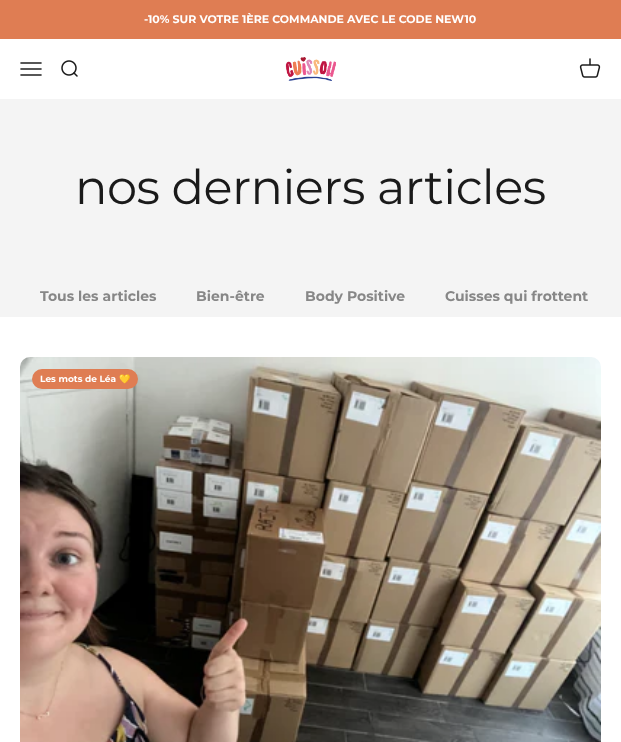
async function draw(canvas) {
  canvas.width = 621;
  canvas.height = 742;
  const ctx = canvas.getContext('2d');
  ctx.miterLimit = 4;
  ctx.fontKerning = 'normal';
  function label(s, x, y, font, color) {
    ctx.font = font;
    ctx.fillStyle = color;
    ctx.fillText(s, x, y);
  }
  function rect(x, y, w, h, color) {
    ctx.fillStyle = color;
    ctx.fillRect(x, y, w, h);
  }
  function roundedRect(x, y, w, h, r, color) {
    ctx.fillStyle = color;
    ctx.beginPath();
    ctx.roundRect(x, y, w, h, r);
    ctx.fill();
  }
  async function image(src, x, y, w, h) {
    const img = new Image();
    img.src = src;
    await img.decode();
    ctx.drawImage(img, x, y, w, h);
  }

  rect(0, 0, 621, 742, '#fff');
  rect(0, 0, 621, 39, '#df7d53');
  label('-10% SUR VOTRE 1ÈRE COMMANDE AVEC LE CODE NEW10', 144, 23, 'bold 11px Montserrat', '#fff');
  await image('assets/img1.png', 20, 62, 22, 14);
  await image('assets/img2.png', 61, 60, 17, 17);
  await image('assets/img3.png', 285, 57, 51, 24);
  await image('assets/img4.png', 579, 58, 22, 20);
  rect(0, 99, 621, 218, '#f4f4f4');
  ctx.letterSpacing = '-0.5px';
  label('nos derniers articles', 75, 204, '48px Montserrat', '#1a1a1a');
  ctx.letterSpacing = '0px';
  label('Tous les articles', 40, 301, 'bold 14px Montserrat', '#878787');
  label('Bien-être', 196, 301, 'bold 14px Montserrat', '#878787');
  label('Body Positive', 305, 301, 'bold 14px Montserrat', '#878787');
  label('Cuisses qui frottent', 445, 301, 'bold 14px Montserrat', '#878787');
  await image('assets/img5.png', 20, 357, 581, 385);
  roundedRect(32, 369, 106, 20, 10, '#df7d53');
  label('Les mots de Léa', 40, 382, 'bold 9px Montserrat', '#fff');
  label('💛', 119, 382, 'bold 9px Noto Color Emoji', '#fff');
}

draw(document.querySelector('canvas'));
